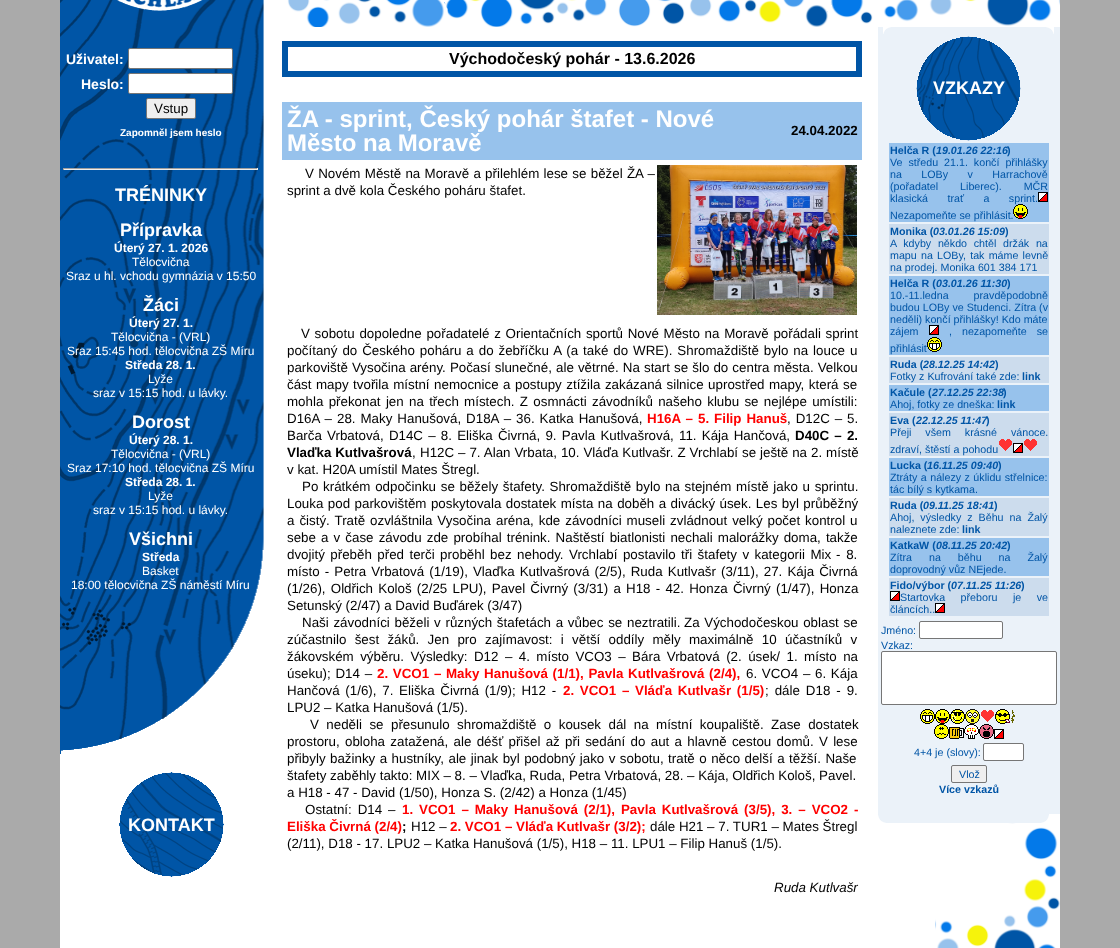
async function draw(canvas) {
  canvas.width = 1120;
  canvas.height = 948;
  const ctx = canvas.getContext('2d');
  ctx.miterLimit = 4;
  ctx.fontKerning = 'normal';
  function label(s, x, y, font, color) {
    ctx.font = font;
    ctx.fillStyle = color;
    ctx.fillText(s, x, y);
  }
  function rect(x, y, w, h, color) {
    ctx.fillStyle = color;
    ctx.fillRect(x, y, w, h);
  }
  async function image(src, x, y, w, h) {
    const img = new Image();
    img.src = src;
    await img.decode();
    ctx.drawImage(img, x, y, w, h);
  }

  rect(0, 0, 1120, 948, '#aaa');
  rect(60, 0, 1000, 948, '#fff');
  await image('assets/img1.png', 287, 0, 773, 27);
  await image('assets/img2.png', 60, 0, 204, 754);
  label('Uživatel:', 66, 64, 'bold 14px Liberation Sans', '#fff');
  ctx.beginPath();
  ctx.roundRect(128.5, 48.5, 104, 20, 1.5);
  ctx.fill();
  ctx.strokeStyle = '#767676';
  ctx.stroke();
  label('Heslo:', 81, 89, 'bold 14px Liberation Sans', '#fff');
  ctx.beginPath();
  ctx.roundRect(128.5, 73.5, 104, 20, 1.5);
  ctx.fill();
  ctx.stroke();
  ctx.fillStyle = '#efefef';
  ctx.beginPath();
  ctx.roundRect(146.5, 98.5, 49, 20, 1.5);
  ctx.fill();
  ctx.stroke();
  label('Vstup', 154, 113, '13.35px Liberation Sans', '#000');
  label('Zapomněl jsem heslo', 120, 136, 'bold 10px Liberation Sans', '#fff');
  rect(63, 168, 195, 1, '#9f9f9f');
  rect(257, 168, 1, 2, '#eee');
  rect(63, 169, 195, 1, '#eee');
  rect(63, 168, 1, 2, '#9f9f9f');
  label('TRÉNINKY', 115, 201, 'bold 18px Liberation Sans', '#fff');
  label('Přípravka', 120, 236, 'bold 18px Liberation Sans', '#fff');
  label('Úterý 27. 1. 2026', 114, 252, 'bold 12px Liberation Sans', '#fff');
  label('Tělocvična', 132, 266, '12px Liberation Sans', '#fff');
  label('Sraz u hl. vchodu gymnázia v 15:50', 66, 280, '12px Liberation Sans', '#fff');
  label('Žáci', 143, 311, 'bold 18px Liberation Sans', '#fff');
  label('Úterý 27. 1.', 129, 327, 'bold 12px Liberation Sans', '#fff');
  label('Tělocvična - (VRL)', 111, 341, '12px Liberation Sans', '#fff');
  label('Sraz 15:45 hod. tělocvična ZŠ Míru', 67, 355, '12px Liberation Sans', '#fff');
  label('Středa 28. 1.', 125, 369, 'bold 12px Liberation Sans', '#fff');
  label('Lyže', 148, 383, '12px Liberation Sans', '#fff');
  label('sraz v 15:15 hod. u lávky.', 93, 397, '12px Liberation Sans', '#fff');
  label('Dorost', 132, 428, 'bold 18px Liberation Sans', '#fff');
  label('Úterý 28. 1.', 129, 444, 'bold 12px Liberation Sans', '#fff');
  label('Tělocvična - (VRL)', 111, 458, '12px Liberation Sans', '#fff');
  label('Sraz 17:10 hod. tělocvična ZŠ Míru', 67, 472, '12px Liberation Sans', '#fff');
  label('Středa 28. 1.', 125, 486, 'bold 12px Liberation Sans', '#fff');
  label('Lyže', 148, 500, '12px Liberation Sans', '#fff');
  label('sraz v 15:15 hod. u lávky.', 93, 514, '12px Liberation Sans', '#fff');
  label('Všichni', 129, 545, 'bold 18px Liberation Sans', '#fff');
  label('Středa', 142, 561, 'bold 12px Liberation Sans', '#fff');
  label('Basket', 142, 575, '12px Liberation Sans', '#fff');
  label('18:00 tělocvična ZŠ náměstí Míru', 71, 589, '12px Liberation Sans', '#fff');
  await image('assets/img3.png', 119, 772, 105, 105);
  label('KONTAKT', 128, 831, 'bold 18px Liberation Sans', '#fff');
  ctx.strokeStyle = '#0055a6';
  ctx.lineWidth = 5;
  ctx.strokeRect(284.5, 43.5, 575, 31);
  ctx.lineWidth = 1;
  ctx.strokeRect(287.5, 46.5, 569, 25);
  label('Východočeský pohár - 13.6.2026', 449, 64, 'bold 16px Liberation Sans', '#000');
  rect(282, 102, 580, 58, '#97c2ec');
  label('ŽA - sprint, Český pohár štafet - Nové', 287, 127, 'bold 24px Liberation Sans', '#fff');
  label('Město na Moravě', 287, 151, 'bold 24px Liberation Sans', '#fff');
  label('24.04.2022', 791, 135, 'bold 13.35px Liberation Sans', '#000');
  ctx.wordSpacing = '0.6px';
  label('V Novém Městě na Moravě a přilehlém lese se běžel ŽA –', 305, 178, '13.35px Liberation Sans', '#000');
  await image('assets/img4.png', 657, 165, 200, 150);
  ctx.wordSpacing = '0px';
  label('sprint a dvě kola Českého poháru štafet.', 287, 195, '13.35px Liberation Sans', '#000');
  ctx.wordSpacing = '1px';
  label('V sobotu dopoledne pořadatelé z Orientačních sportů Nové Město na Moravě pořádali sprint', 301, 338, '13.35px Liberation Sans', '#000');
  ctx.wordSpacing = '1.25px';
  label('počítaný do Českého poháru a do žebříčku A (a také do WRE). Shromaždiště bylo na louce u', 287, 355, '13.35px Liberation Sans', '#000');
  ctx.wordSpacing = '0.4px';
  label('parkoviště Vysočina arény. Počasí slunečné, ale větrné. Na start se šlo do centra města. Velkou', 287, 372, '13.35px Liberation Sans', '#000');
  ctx.wordSpacing = '0.8px';
  label('část mapy tvořila místní nemocnice a postupy ztížila zakázaná silnice uprostřed mapy, která se', 287, 389, '13.35px Liberation Sans', '#000');
  ctx.wordSpacing = '1.6px';
  label('mohla překonat jen na třech místech. Z osmnácti závodníků našeho klubu se nejlépe umístili:', 287, 406, '13.35px Liberation Sans', '#000');
  ctx.wordSpacing = '1.25px';
  label('D16A – 28. Maky Hanušová, D18A – 36. Katka Hanušová,', 287, 423, '13.35px Liberation Sans', '#000');
  label('H16A – 5. Filip Hanuš', 647, 423, 'bold 13.35px Liberation Sans', '#f00');
  label(', D12C – 5.', 787, 423, '13.35px Liberation Sans', '#000');
  ctx.wordSpacing = '1.5px';
  label('Barča Vrbatová, D14C – 8. Eliška Čivrná, 9. Pavla Kutlvašrová, 11. Kája Hančová,', 287, 440, '13.35px Liberation Sans', '#000');
  label('D40C – 2.', 795, 440, 'bold 13.35px Liberation Sans', '#000');
  ctx.wordSpacing = '0px';
  label('Vlaďka Kutlvašrová', 287, 457, 'bold 13.35px Liberation Sans', '#000');
  label(',', 412, 457, '13.35px Liberation Sans', '#000');
  ctx.wordSpacing = '0.25px';
  label('H12C – 7. Alan Vrbata, 10. Vláďa Kutlvašr. Z Vrchlabí se ještě na 2. místě', 420, 457, '13.35px Liberation Sans', '#000');
  ctx.wordSpacing = '0px';
  label('v kat. H20A umístil Mates Štregl.', 287, 474, '13.35px Liberation Sans', '#000');
  ctx.wordSpacing = '1px';
  label('Po krátkém odpočinku se běžely štafety. Shromaždiště bylo na stejném místě jako u sprintu.', 302, 491, '13.35px Liberation Sans', '#000');
  ctx.wordSpacing = '0.75px';
  label('Louka pod parkovištěm poskytovala dostatek místa na doběh a divácký úsek. Les byl průběžný', 287, 508, '13.35px Liberation Sans', '#000');
  ctx.wordSpacing = '1.25px';
  label('a čistý. Tratě ozvláštnila Vysočina aréna, kde závodníci museli zvládnout velký počet kontrol u', 287, 525, '13.35px Liberation Sans', '#000');
  ctx.wordSpacing = '1.4px';
  label('sebe a v čase závodu zde probíhal trénink. Naštěstí biatlonisti nechali malorážky doma, takže', 287, 542, '13.35px Liberation Sans', '#000');
  ctx.wordSpacing = '1.75px';
  label('dvojitý přeběh před terči proběhl bez nehody. Vrchlabí postavilo tři štafety v kategorii Mix', 287, 559, '13.35px Liberation Sans', '#000');
  ctx.wordSpacing = '2px';
  label('- 8.', 836, 559, '13.35px Liberation Sans', '#000');
  ctx.wordSpacing = '1.4px';
  label('místo - Petra Vrbatová (1/19), Vlaďka Kutlvašrová (2/5), Ruda Kutlvašr (3/11), 27. Kája Čivrná', 287, 576, '13.35px Liberation Sans', '#000');
  ctx.wordSpacing = '1.5px';
  label('(1/26), Oldřich Kološ (2/25 LPU), Pavel Čivrný (3/31) a H18 - 42. Honza Čivrný (1/47), Honza', 287, 593, '13.35px Liberation Sans', '#000');
  ctx.wordSpacing = '0px';
  label('Setunský (2/47) a David Buďárek (3/47)', 287, 610, '13.35px Liberation Sans', '#000');
  ctx.wordSpacing = '1px';
  label('Naši závodníci běželi v různých štafetách a vůbec se neztratili.', 302, 627, '13.35px Liberation Sans', '#000');
  label('Za Východočeskou oblast se', 684, 627, '13.35px Liberation Sans', '#000');
  ctx.wordSpacing = '4.6px';
  label('zúčastnilo šest žáků. Jen pro zajímavost: i větší oddíly měly maximálně 10 účastníků v', 287, 644, '13.35px Liberation Sans', '#000');
  ctx.wordSpacing = '2.75px';
  label('žákovském výběru. Výsledky: D12 – 4. místo VCO3 – Bára Vrbatová (2. úsek/ 1. místo na', 287, 661, '13.35px Liberation Sans', '#000');
  ctx.wordSpacing = '1px';
  label('úseku); D14 –', 287, 678, '13.35px Liberation Sans', '#000');
  label('2. VCO1 – Maky Hanušová (1/1), Pavla Kutlvašrová (2/4),', 377, 678, 'bold 13.35px Liberation Sans', '#f00');
  label('6. VCO4 – 6. Kája', 746, 678, '13.35px Liberation Sans', '#000');
  ctx.wordSpacing = '2px';
  label('Hančová (1/6), 7. Eliška Čivrná (1/9); H12 -', 287, 695, '13.35px Liberation Sans', '#000');
  label('2. VCO1 – Vláďa Kutlvašr (1/5)', 563, 695, 'bold 13.35px Liberation Sans', '#f00');
  ctx.wordSpacing = '2.25px';
  label('; dále D18 - 9.', 765, 695, '13.35px Liberation Sans', '#000');
  ctx.wordSpacing = '0px';
  label('LPU2 – Katka Hanušová (1/5).', 287, 712, '13.35px Liberation Sans', '#000');
  ctx.wordSpacing = '3.75px';
  label('V neděli se přesunulo shromaždiště o kousek dál na místní koupaliště. Zase dostatek', 310, 729, '13.35px Liberation Sans', '#000');
  ctx.wordSpacing = '1.6px';
  label('prostoru, obloha zatažená, ale déšť přišel až při sedání do aut a hlavně cestou domů. V lese', 287, 746, '13.35px Liberation Sans', '#000');
  ctx.wordSpacing = '0.75px';
  label('přibyly bažinky a hustníky, ale jinak byl podobný jako v sobotu, tratě o něco delší a těžší. Naše', 287, 763, '13.35px Liberation Sans', '#000');
  ctx.wordSpacing = '0px';
  label('štafety zaběhly takto: MIX – 8. – Vlaďka, Ruda, Petra Vrbatová, 28. – Kája, Oldřich Kološ, Pavel.', 287, 780, '13.35px Liberation Sans', '#000');
  label('a H18 - 47 - David (1/50), Honza S. (2/42) a Honza (1/45)', 287, 797, '13.35px Liberation Sans', '#000');
  ctx.wordSpacing = '2.25px';
  label('Ostatní: D14 –', 305, 814, '13.35px Liberation Sans', '#000');
  label('1. VCO1 – Maky Hanušová (2/1), Pavla Kutlvašrová (3/5), 3. – VCO2 -', 402, 814, 'bold 13.35px Liberation Sans', '#f00');
  ctx.wordSpacing = '0px';
  label('Eliška Čivrná (2/4)', 287, 831, 'bold 13.35px Liberation Sans', '#f00');
  label(';', 402, 831, 'bold 13.35px Liberation Sans', '#000');
  label('H12 –', 411, 831, '13.35px Liberation Sans', '#000');
  label('2. VCO1 – Vláďa Kutlvašr (3/2);', 450, 831, 'bold 13.35px Liberation Sans', '#f00');
  label('dále H21 – 7. TUR1 – Mates Štregl', 650, 831, '13.35px Liberation Sans', '#000');
  label('(2/11), D18 - 17. LPU2 – Katka Hanušová (1/5), H18 – 11. LPU1 – Filip Hanuš (1/5).', 287, 848, '13.35px Liberation Sans', '#000');
  label('Ruda Kutlvašr', 774, 892, 'italic 13.35px Liberation Sans', '#000');
  rect(878, 27, 182, 787, '#ebf2f9');
  await image('assets/img5.png', 883, 27, 171, 7);
  await image('assets/img6.png', 916, 36, 105, 105);
  label('VZKAZY', 933, 94, 'bold 18px Liberation Sans', '#fff');
  rect(889, 143, 160, 79, '#97c2ec');
  label('Helča R (', 890, 154, 'bold 10.7px Liberation Sans', '#0055a6');
  label('19.01.26 22:16', 936, 154, 'italic bold 10.7px Liberation Sans', '#0055a6');
  label(')', 1007, 154, 'bold 10.7px Liberation Sans', '#0055a6');
  ctx.wordSpacing = '3px';
  label('Ve středu 21.1. končí přihlášky', 890, 166, '10.7px Liberation Sans', '#0055a6');
  ctx.wordSpacing = '16.5px';
  label('na LOBy v Harrachově', 890, 178, '10.7px Liberation Sans', '#0055a6');
  ctx.wordSpacing = '19px';
  label('(pořadatel Liberec). MČR', 890, 190, '10.7px Liberation Sans', '#0055a6');
  ctx.wordSpacing = '16.5px';
  label('klasická trať a sprint.', 890, 202, '10.7px Liberation Sans', '#0055a6');
  await image('assets/img7.png', 1038, 192, 10, 10);
  ctx.wordSpacing = '0px';
  label('Nezapomeňte se přihlásit.', 890, 219, '10.7px Liberation Sans', '#0055a6');
  await image('assets/img8.png', 1013, 204, 15, 15);
  rect(889, 224, 160, 50, '#ccdced');
  label('Monika (', 890, 235, 'bold 10.7px Liberation Sans', '#0055a6');
  label('03.01.26 15:09', 933, 235, 'italic bold 10.7px Liberation Sans', '#0055a6');
  label(')', 1005, 235, 'bold 10.7px Liberation Sans', '#0055a6');
  ctx.wordSpacing = '3.75px';
  label('A kdyby někdo chtěl držák na', 890, 247, '10.7px Liberation Sans', '#0055a6');
  ctx.wordSpacing = '1.25px';
  label('mapu na LOBy, tak máme levně', 890, 259, '10.7px Liberation Sans', '#0055a6');
  ctx.wordSpacing = '0px';
  label('na prodej. Monika 601 384 171', 890, 271, '10.7px Liberation Sans', '#0055a6');
  rect(889, 276, 160, 79, '#97c2ec');
  label('Helča R (', 890, 287, 'bold 10.7px Liberation Sans', '#0055a6');
  label('03.01.26 11:30', 936, 287, 'italic bold 10.7px Liberation Sans', '#0055a6');
  label(')', 1007, 287, 'bold 10.7px Liberation Sans', '#0055a6');
  ctx.wordSpacing = '22px';
  label('10.-11.ledna pravděpodobně', 890, 299, '10.7px Liberation Sans', '#0055a6');
  ctx.wordSpacing = '0px';
  label('budou LOBy ve Studenci. Zítra (v', 890, 311, '10.7px Liberation Sans', '#0055a6');
  label('neděli) končí přihlášky! Kdo máte', 890, 323, '10.7px Liberation Sans', '#0055a6');
  label('zájem', 890, 335, '10.7px Liberation Sans', '#0055a6');
  await image('assets/img7.png', 929, 325, 10, 10);
  ctx.wordSpacing = '7px';
  label(', nezapomeňte se', 949, 335, '10.7px Liberation Sans', '#0055a6');
  ctx.wordSpacing = '0px';
  label('přihlásit', 890, 352, '10.7px Liberation Sans', '#0055a6');
  await image('assets/img9.png', 927, 337, 15, 15);
  rect(889, 357, 160, 26, '#ccdced');
  label('Ruda (', 890, 368, 'bold 10.7px Liberation Sans', '#0055a6');
  label('28.12.25 14:42', 923, 368, 'italic bold 10.7px Liberation Sans', '#0055a6');
  label(')', 995, 368, 'bold 10.7px Liberation Sans', '#0055a6');
  label('Fotky z Kufrování také zde:', 890, 380, '10.7px Liberation Sans', '#0055a6');
  label('link', 1022, 380, 'bold 10.7px Liberation Sans', '#0055a6');
  rect(889, 385, 160, 26, '#97c2ec');
  label('Kačule (', 890, 396, 'bold 10.7px Liberation Sans', '#0055a6');
  label('27.12.25 22:38', 932, 396, 'italic bold 10.7px Liberation Sans', '#0055a6');
  label(')', 1003, 396, 'bold 10.7px Liberation Sans', '#0055a6');
  label('Ahoj, fotky ze dneška:', 890, 408, '10.7px Liberation Sans', '#0055a6');
  label('link', 997, 408, 'bold 10.7px Liberation Sans', '#0055a6');
  rect(889, 413, 160, 43, '#ccdced');
  label('Eva (', 890, 424, 'bold 10.7px Liberation Sans', '#0055a6');
  label('22.12.25 11:47', 916, 424, 'italic bold 10.7px Liberation Sans', '#0055a6');
  label(')', 986, 424, 'bold 10.7px Liberation Sans', '#0055a6');
  ctx.wordSpacing = '11px';
  label('Přeji všem krásné vánoce.', 890, 436, '10.7px Liberation Sans', '#0055a6');
  ctx.wordSpacing = '0px';
  label('zdraví, štěstí a pohodu', 890, 453, '10.7px Liberation Sans', '#0055a6');
  await image('assets/img10.png', 999, 439, 13, 12);
  await image('assets/img7.png', 1013, 443, 10, 10);
  await image('assets/img10.png', 1024, 439, 13, 12);
  rect(889, 458, 160, 38, '#97c2ec');
  label('Lucka (', 890, 469, 'bold 10.7px Liberation Sans', '#0055a6');
  label('16.11.25 09:40', 927, 469, 'italic bold 10.7px Liberation Sans', '#0055a6');
  label(')', 998, 469, 'bold 10.7px Liberation Sans', '#0055a6');
  ctx.wordSpacing = '0.5px';
  label('Ztráty a nálezy z úklidu střelnice:', 890, 481, '10.7px Liberation Sans', '#0055a6');
  ctx.wordSpacing = '0px';
  label('tác bílý s kytkama.', 890, 493, '10.7px Liberation Sans', '#0055a6');
  rect(889, 498, 160, 38, '#ccdced');
  label('Ruda (', 890, 509, 'bold 10.7px Liberation Sans', '#0055a6');
  label('09.11.25 18:41', 923, 509, 'italic bold 10.7px Liberation Sans', '#0055a6');
  label(')', 994, 509, 'bold 10.7px Liberation Sans', '#0055a6');
  ctx.wordSpacing = '3px';
  label('Ahoj, výsledky z Běhu na Žalý', 890, 521, '10.7px Liberation Sans', '#0055a6');
  ctx.wordSpacing = '0px';
  label('naleznete zde:', 890, 533, '10.7px Liberation Sans', '#0055a6');
  label('link', 962, 533, 'bold 10.7px Liberation Sans', '#0055a6');
  rect(889, 538, 160, 38, '#97c2ec');
  label('KatkaW (', 890, 549, 'bold 10.7px Liberation Sans', '#0055a6');
  label('08.11.25 20:42', 936, 549, 'italic bold 10.7px Liberation Sans', '#0055a6');
  label(')', 1007, 549, 'bold 10.7px Liberation Sans', '#0055a6');
  ctx.wordSpacing = '14px';
  label('Zítra na běhu na Žalý', 890, 561, '10.7px Liberation Sans', '#0055a6');
  ctx.wordSpacing = '0px';
  label('doprovodný vůz NEjede.', 890, 573, '10.7px Liberation Sans', '#0055a6');
  rect(889, 578, 160, 38, '#ccdced');
  label('Fido/výbor (', 890, 589, 'bold 10.7px Liberation Sans', '#0055a6');
  label('07.11.25 11:26', 951, 589, 'italic bold 10.7px Liberation Sans', '#0055a6');
  label(')', 1021, 589, 'bold 10.7px Liberation Sans', '#0055a6');
  await image('assets/img7.png', 890, 591, 10, 10);
  ctx.wordSpacing = '12.5px';
  label('Startovka přeboru je ve', 900, 601, '10.7px Liberation Sans', '#0055a6');
  ctx.wordSpacing = '0px';
  label('článcích..', 890, 613, '10.7px Liberation Sans', '#0055a6');
  await image('assets/img7.png', 935, 603, 10, 10);
  label('Jméno:', 881, 634, '10.7px Liberation Sans', '#0055a6');
  ctx.fillStyle = '#fff';
  ctx.beginPath();
  ctx.roundRect(919.5, 621.5, 83, 17, 1.5);
  ctx.fill();
  ctx.strokeStyle = '#767676';
  ctx.stroke();
  label('Vzkaz:', 881, 649, '10.7px Liberation Sans', '#0055a6');
  ctx.fillStyle = '#fff';
  ctx.beginPath();
  ctx.roundRect(881.5, 651.5, 175, 53, 1.5);
  ctx.fill();
  ctx.stroke();
  await image('assets/img11.png', 920, 709, 15, 15);
  await image('assets/img12.png', 935, 709, 15, 15);
  await image('assets/img13.png', 950, 709, 15, 15);
  await image('assets/img14.png', 965, 709, 15, 15);
  await image('assets/img15.png', 981, 710, 13, 12);
  await image('assets/img16.png', 995, 709, 20, 15);
  await image('assets/img17.png', 934, 724, 15, 15);
  await image('assets/img18.png', 949, 724, 15, 15);
  await image('assets/img19.png', 964, 724, 15, 15);
  await image('assets/img20.png', 979, 724, 15, 15);
  await image('assets/img7.png', 994, 729, 10, 10);
  label('4+4 je (slovy):', 914, 756, '10.7px Liberation Sans', '#0055a6');
  ctx.fillStyle = '#fff';
  ctx.beginPath();
  ctx.roundRect(983.5, 743.5, 40, 17, 1.5);
  ctx.fill();
  ctx.stroke();
  ctx.fillStyle = '#efefef';
  ctx.beginPath();
  ctx.roundRect(951.5, 765.5, 35, 17, 1.5);
  ctx.fill();
  ctx.stroke();
  label('Vlož', 959, 778, '10.7px Liberation Sans', '#0055a6');
  label('Více vzkazů', 939, 793, 'bold 10.7px Liberation Sans', '#0055a6');
  await image('assets/img21.png', 878, 814, 171, 9);
  await image('assets/img22.png', 935, 823, 125, 125);
}

draw(document.querySelector('canvas'));
